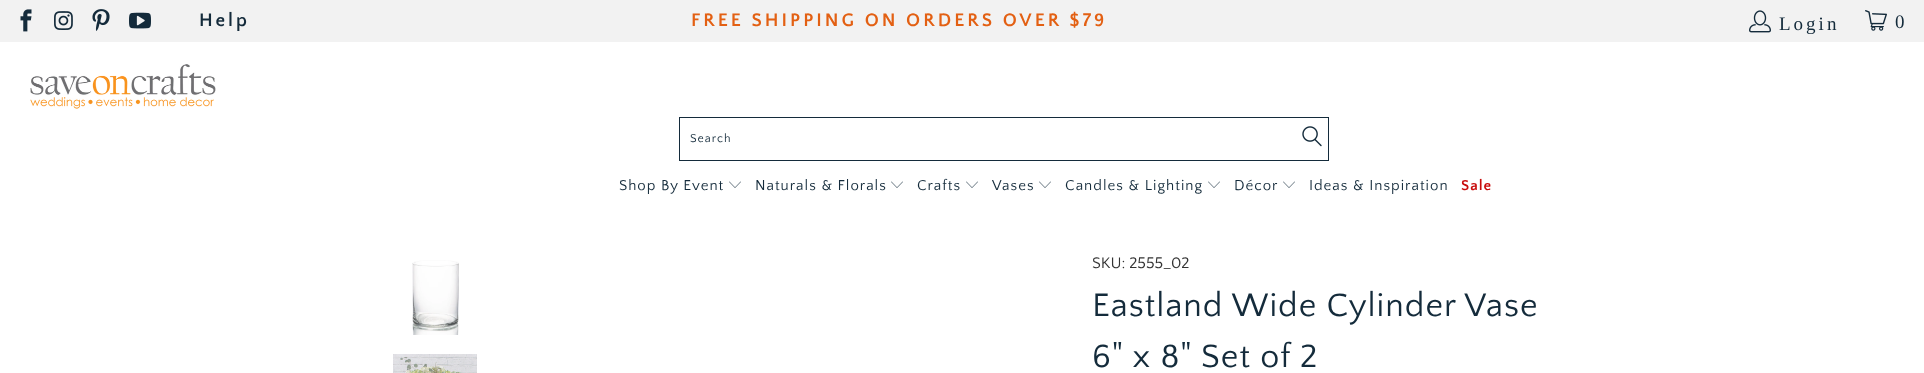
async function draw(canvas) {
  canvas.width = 1924;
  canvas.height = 373;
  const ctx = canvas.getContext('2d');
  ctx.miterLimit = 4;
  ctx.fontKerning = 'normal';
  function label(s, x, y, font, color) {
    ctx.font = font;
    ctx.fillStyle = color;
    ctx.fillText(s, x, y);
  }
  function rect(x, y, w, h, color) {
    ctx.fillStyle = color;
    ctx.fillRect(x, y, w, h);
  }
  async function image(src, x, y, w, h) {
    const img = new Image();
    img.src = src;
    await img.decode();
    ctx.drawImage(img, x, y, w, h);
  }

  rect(0, 0, 1924, 373, '#fff');
  rect(0, 0, 1924, 42, '#f2f2f2');
  await image('assets/img1.png', 20, 9, 12, 23);
  await image('assets/img2.png', 54, 11, 19, 19);
  await image('assets/img3.png', 92, 9, 18, 22);
  await image('assets/img4.png', 129, 12, 22, 17);
  ctx.letterSpacing = '3px';
  label('Help', 199, 26, 'bold 19px Quattrocento Sans', '#142b3b');
  label('FREE SHIPPING ON ORDERS OVER $79', 691, 26, 'bold 19px Quattrocento Sans', '#e36013');
  await image('assets/img5.png', 1749, 10, 22, 23);
  label('Login', 1779, 30, '19px Liberation Serif', '#142b3b');
  await image('assets/img6.png', 1865, 10, 22, 21);
  label('0', 1895, 28, '19px Liberation Serif', '#142b3b');
  await image('assets/img7.png', 30, 64, 186, 45);
  ctx.strokeStyle = '#142b3b';
  ctx.strokeRect(679.5, 117.5, 649, 43);
  ctx.letterSpacing = '1px';
  label('Search', 690, 142, '12px Quattrocento Sans', '#142b3b');
  await image('assets/img8.png', 1302, 126, 20, 21);
  label('Shop By Event', 619, 190, '15px Quattrocento Sans', '#142b3b');
  await image('assets/img9.png', 729, 181, 12, 7);
  label('Naturals & Florals', 755, 190, '15px Quattrocento Sans', '#142b3b');
  await image('assets/img9.png', 891, 181, 12, 7);
  label('Crafts', 917, 190, '15px Quattrocento Sans', '#142b3b');
  await image('assets/img9.png', 966, 181, 12, 7);
  label('Vases', 992, 190, '15px Quattrocento Sans', '#142b3b');
  await image('assets/img9.png', 1039, 181, 12, 7);
  label('Candles & Lighting', 1065, 190, '15px Quattrocento Sans', '#142b3b');
  await image('assets/img9.png', 1208, 181, 12, 7);
  label('Décor', 1234, 190, '15px Quattrocento Sans', '#142b3b');
  await image('assets/img9.png', 1283, 181, 12, 7);
  label('Ideas & Inspiration', 1309, 190, '15px Quattrocento Sans', '#142b3b');
  label('Sale', 1461, 190, 'bold 15px Quattrocento Sans', '#c80b0b');
  await image('assets/img10.png', 412, 260, 47, 75);
  await image('assets/img11.png', 393, 354, 84, 19);
  ctx.letterSpacing = '0px';
  label('SKU: 2555_02', 1092, 268, '16px Quattrocento Sans', '#333');
  ctx.letterSpacing = '1px';
  label('Eastland Wide Cylinder Vase', 1092, 316, '34px Quattrocento Sans', '#142b3b');
  label('6" x 8" Set of 2', 1092, 367, '34px Quattrocento Sans', '#142b3b');
}

draw(document.querySelector('canvas'));
